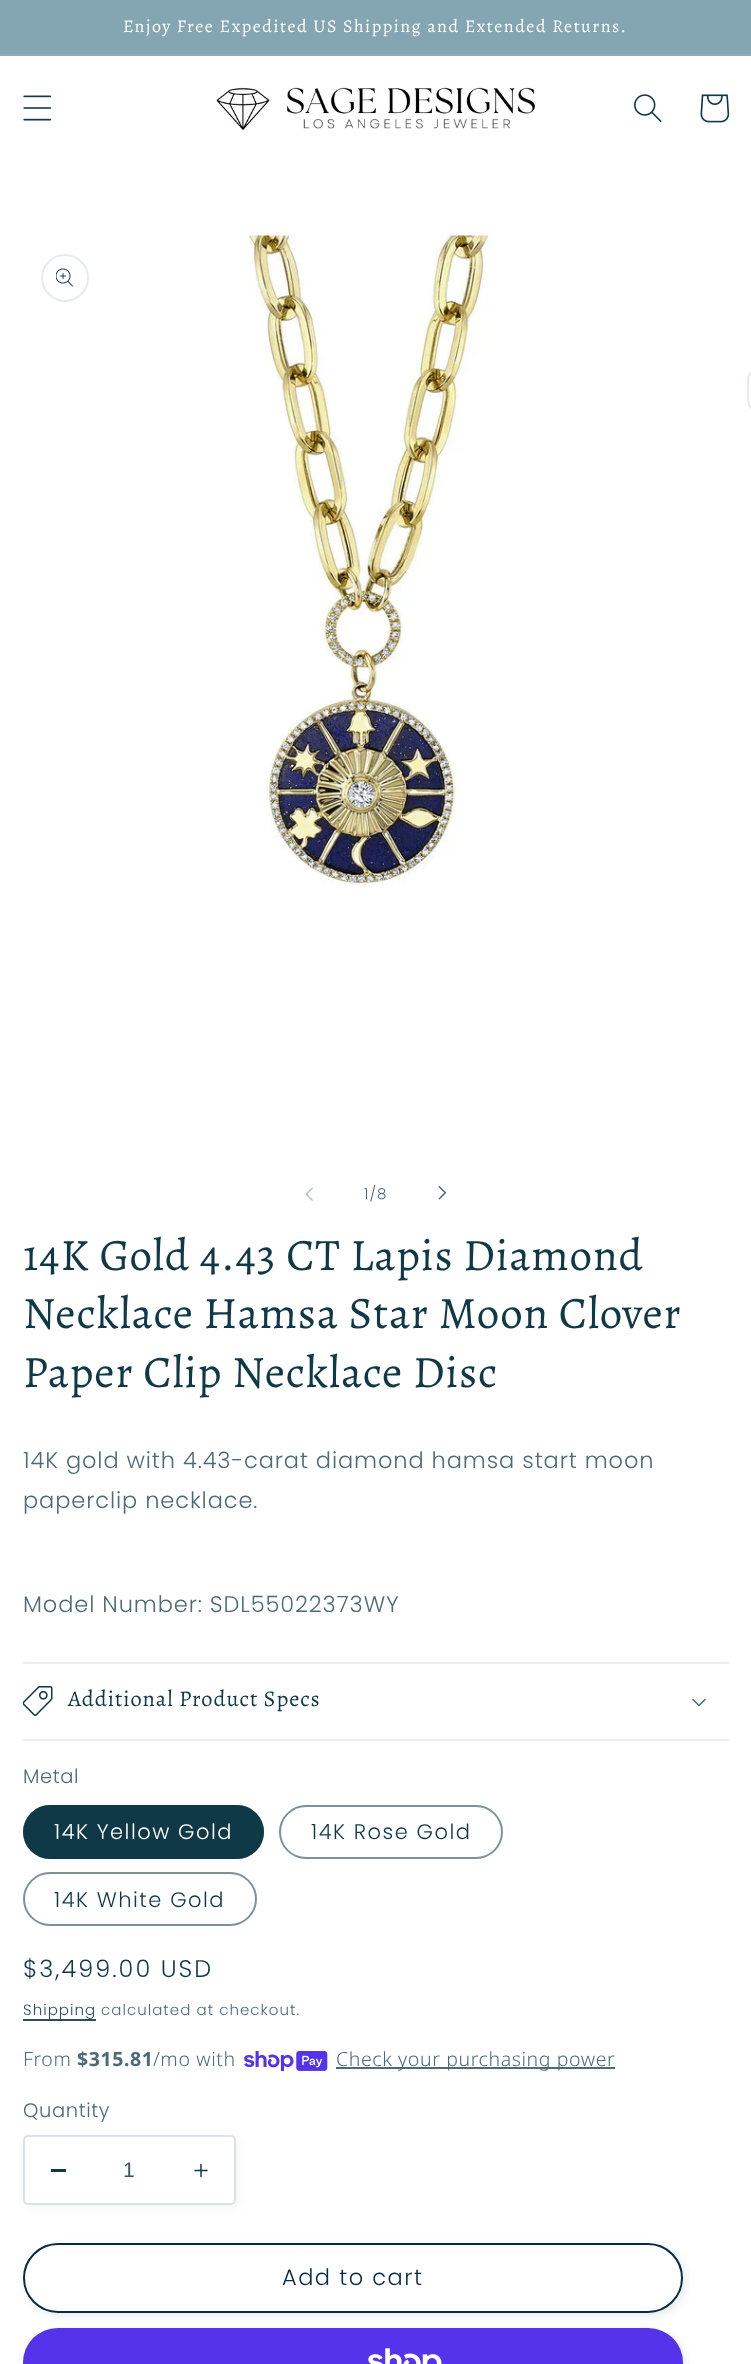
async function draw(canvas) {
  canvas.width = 751;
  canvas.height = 2364;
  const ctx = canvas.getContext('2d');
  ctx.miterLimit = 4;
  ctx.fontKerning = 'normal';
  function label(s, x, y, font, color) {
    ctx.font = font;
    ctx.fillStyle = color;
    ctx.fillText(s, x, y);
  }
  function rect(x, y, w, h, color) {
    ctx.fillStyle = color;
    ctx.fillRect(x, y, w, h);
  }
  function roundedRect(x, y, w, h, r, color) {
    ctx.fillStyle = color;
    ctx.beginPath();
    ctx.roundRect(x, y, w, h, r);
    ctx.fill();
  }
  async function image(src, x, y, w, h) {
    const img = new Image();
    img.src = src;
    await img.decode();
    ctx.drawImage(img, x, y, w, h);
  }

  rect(0, 0, 751, 2364, '#fff');
  rect(0, 0, 751, 54, '#84a6b2');
  rect(0, 54, 751, 2, '#8eadb8');
  ctx.letterSpacing = '1.5px';
  label('Enjoy Free Expedited US Shipping and Extended Returns.', 123, 32, '18px Alegreya', '#fff');
  await image('assets/img1.png', 23, 95, 29, 26);
  await image('assets/img2.png', 216, 86, 320, 45);
  await image('assets/img3.png', 634, 94, 28, 28);
  await image('assets/img4.png', 700, 94, 30, 29);
  ctx.beginPath();
  ctx.arc(65, 278, 23, 0, 2 * Math.PI);
  ctx.strokeStyle = '#e7ebed';
  ctx.lineWidth = 2;
  ctx.stroke();
  await image('assets/img5.png', 56, 268, 17, 19);
  await image('assets/img6.png', 249, 235, 244, 653);
  ctx.beginPath();
  ctx.roundRect(748, 367, 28, 46, 23);
  ctx.stroke();
  await image('assets/img7.png', 305, 1187, 8, 14);
  ctx.letterSpacing = '1.05px';
  label('1/8', 364, 1199, '300 15px Poppins', '#4c6b76');
  await image('assets/img8.png', 438, 1186, 8, 14);
  ctx.letterSpacing = '0.9px';
  label('14K Gold 4.43 CT Lapis Diamond', 23, 1270, '45px Alegreya', '#103948');
  label('Necklace Hamsa Star Moon Clover', 23, 1328, '45px Alegreya', '#103948');
  label('Paper Clip Necklace Disc', 23, 1387, '45px Alegreya', '#103948');
  label('14K gold with 4.43-carat diamond hamsa start moon', 23, 1468, '300 22.5px Poppins', '#4c6b76');
  label('paperclip necklace.', 23, 1508, '300 22.5px Poppins', '#4c6b76');
  label('Model Number: SDL55022373WY', 23, 1612, '300 22.5px Poppins', '#4c6b76');
  rect(23, 1662, 706, 2, '#eceff0');
  rect(23, 1739, 706, 2, '#eceff0');
  await image('assets/img9.png', 23, 1686, 30, 30);
  label('Additional Product Specs', 68, 1706, '22.5px Alegreya', '#103948');
  await image('assets/img10.png', 692, 1698, 14, 9);
  ctx.letterSpacing = '0.6px';
  label('Metal', 23, 1783, '300 19.5px Poppins', '#4c6b76');
  roundedRect(23, 1805, 241, 54, 27, '#103948');
  ctx.beginPath();
  ctx.roundRect(24, 1806, 239, 52, 26);
  ctx.strokeStyle = '#1039488c';
  ctx.stroke();
  ctx.letterSpacing = '1.5px';
  label('14K Yellow Gold', 54, 1839, '300 21px Poppins', '#fff');
  ctx.beginPath();
  ctx.roundRect(280, 1806, 222, 52, 26);
  ctx.strokeStyle = '#7c929a';
  ctx.stroke();
  label('14K Rose Gold', 311, 1839, '300 21px Poppins', '#103948');
  ctx.beginPath();
  ctx.roundRect(24, 1873, 232, 52, 26);
  ctx.stroke();
  label('14K White Gold', 54, 1907, '300 21px Poppins', '#103948');
  ctx.letterSpacing = '2px';
  label('$3,499.00 USD', 23, 1977, '300 24px Poppins', '#103948');
  ctx.letterSpacing = '1.05px';
  label('Shipping', 23, 2015, '300 15px Poppins', '#2b4c62');
  rect(23, 2019, 73, 2, '#2b4c62');
  label('calculated at checkout.', 101, 2015, '300 15px Poppins', '#4c6b76');
  ctx.letterSpacing = '0.6px';
  label('From', 23, 2066, '300 19.5px Noto Sans', '#4c6b76');
  label('$315.81', 77, 2066, 'bold 19.5px Noto Sans', '#4c6b76');
  label('/mo with', 153, 2066, '300 19.5px Noto Sans', '#4c6b76');
  await image('assets/img11.png', 244, 2051, 84, 21);
  rect(336, 2067, 279, 2, '#4c6b76');
  label('Check your purchasing power', 336, 2066, '300 19.5px Noto Sans', '#4c6b76');
  label('Quantity', 23, 2117, '300 19.5px Poppins', '#4c6b76');
  ctx.fillStyle = '#1039480d';
  ctx.filter = 'blur(4px)';
  ctx.beginPath();
  ctx.roundRect(26, 2138, 213, 70, 5);
  ctx.fill();
  ctx.filter = 'none';
  roundedRect(23, 2135, 213, 70, 5, '#fff');
  rect(51, 2169, 15, 3, '#103948');
  await image('assets/img12.png', 194, 2163, 14, 15);
  ctx.beginPath();
  ctx.roundRect(24, 2136, 211, 68, 4);
  ctx.strokeStyle = '#10394826';
  ctx.stroke();
  ctx.letterSpacing = '0px';
  label('1', 123, 2177, '21px Liberation Sans', '#345763');
  ctx.fillStyle = '#1039481a';
  ctx.filter = 'blur(4px)';
  ctx.beginPath();
  ctx.roundRect(26, 2246, 660, 70, 35);
  ctx.fill();
  ctx.filter = 'none';
  roundedRect(23, 2243, 660, 70, 35, '#fff');
  ctx.beginPath();
  ctx.roundRect(24, 2244, 658, 68, 34);
  ctx.strokeStyle = '#fff';
  ctx.stroke();
  ctx.beginPath();
  ctx.roundRect(24, 2244, 658, 68, 34);
  ctx.strokeStyle = '#052c46';
  ctx.stroke();
  ctx.letterSpacing = '1.5px';
  label('Add to cart', 282, 2285, '300 22.5px Poppins', '#052c46');
  ctx.fillStyle = '#1039481a';
  ctx.filter = 'blur(4px)';
  ctx.beginPath();
  ctx.roundRect(26, 2331, 660, 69, 34.5);
  ctx.fill();
  ctx.filter = 'none';
  roundedRect(23, 2328, 660, 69, 34.5, '#5433eb');
  await image('assets/img13.png', 368, 2348, 74, 16);
}

draw(document.querySelector('canvas'));
